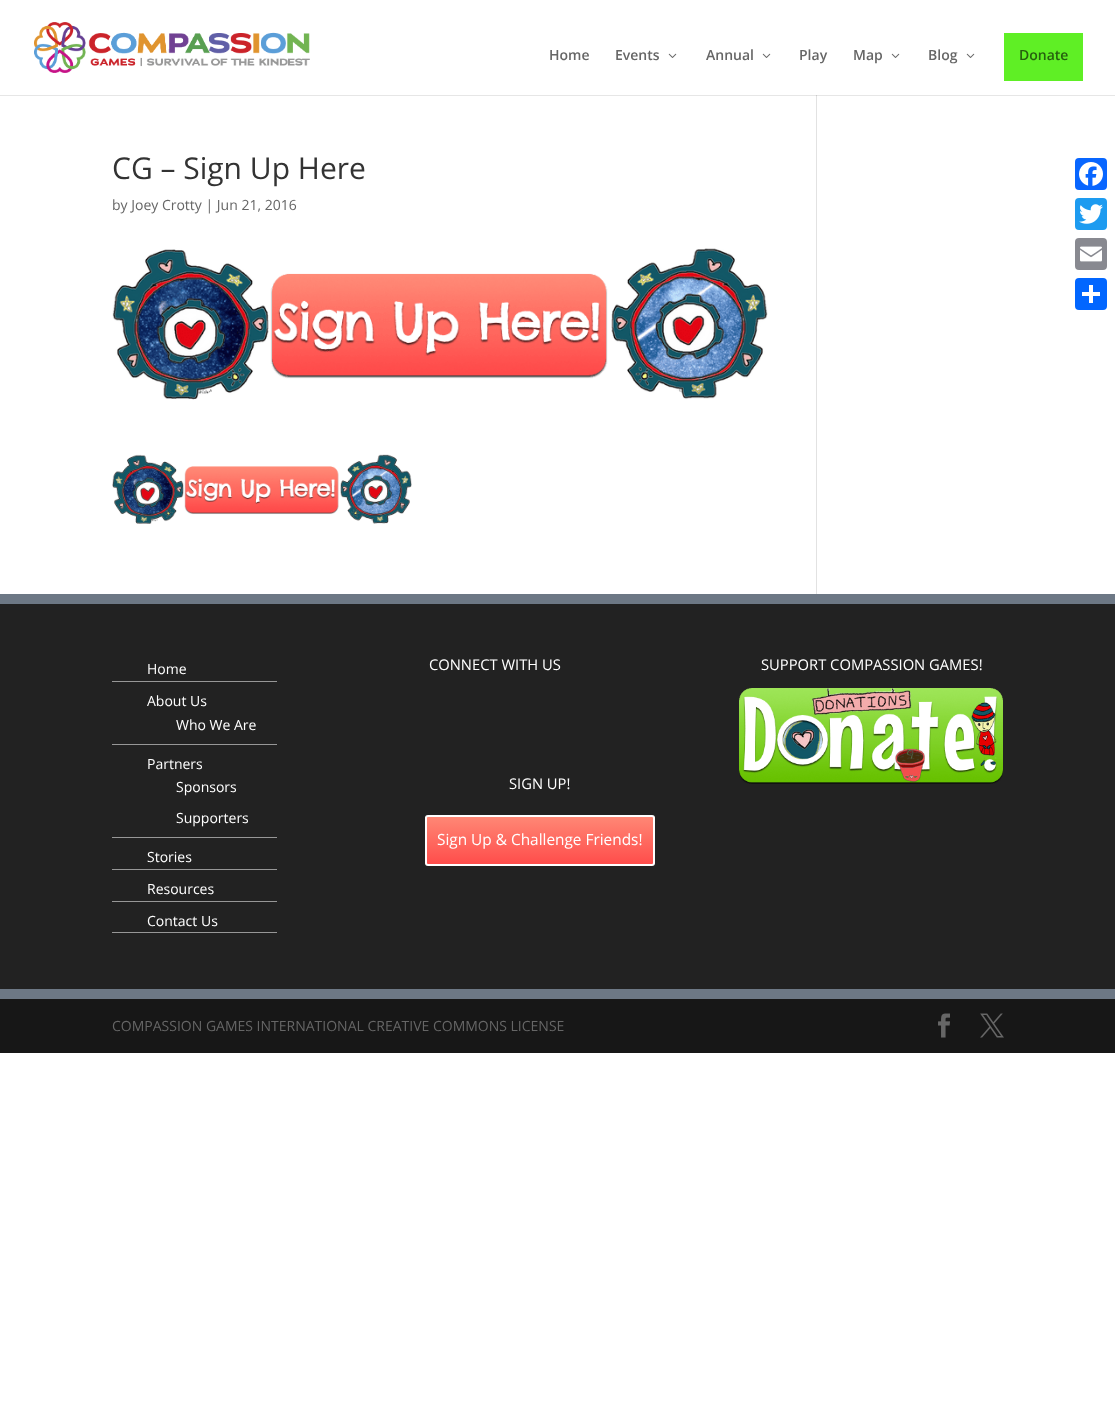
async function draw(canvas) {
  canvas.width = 1115;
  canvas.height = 1421;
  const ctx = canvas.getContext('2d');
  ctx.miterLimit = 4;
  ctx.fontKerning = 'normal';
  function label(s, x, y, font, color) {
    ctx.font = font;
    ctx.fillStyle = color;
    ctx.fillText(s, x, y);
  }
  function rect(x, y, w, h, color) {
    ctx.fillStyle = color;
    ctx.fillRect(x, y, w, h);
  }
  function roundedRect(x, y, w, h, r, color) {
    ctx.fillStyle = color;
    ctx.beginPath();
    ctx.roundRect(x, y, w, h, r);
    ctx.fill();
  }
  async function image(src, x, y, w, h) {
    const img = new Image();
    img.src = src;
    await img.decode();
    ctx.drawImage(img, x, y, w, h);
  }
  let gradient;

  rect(0, 0, 1115, 1421, '#fff');
  rect(0, 95, 1115, 1, '#e6e6e6');
  await image('assets/img1.png', 34, 22, 276, 51);
  label('Home', 549, 60, '600 14px Open Sans', '#666');
  label('Events', 615, 60, '600 14px Open Sans', '#666');
  await image('assets/img2.png', 668, 53, 9, 5);
  label('Annual', 706, 60, '600 14px Open Sans', '#666');
  await image('assets/img2.png', 762, 53, 9, 5);
  label('Play', 799, 60, '600 14px Open Sans', '#666');
  label('Map', 853, 60, '600 14px Open Sans', '#666');
  await image('assets/img2.png', 891, 53, 9, 5);
  label('Blog', 928, 60, '600 14px Open Sans', '#666');
  await image('assets/img2.png', 966, 53, 9, 5);
  rect(1004, 33, 79, 48, '#5fef25');
  label('Donate', 1019, 60, '600 14px Open Sans', '#26600f');
  label('CG – Sign Up Here', 112, 179, '30px Open Sans', '#333');
  label('by Joey Crotty | Jun 21, 2016', 112, 210, '14px Open Sans', '#666');
  await image('assets/img3.png', 112, 248, 656, 152);
  await image('assets/img4.png', 112, 454, 300, 70);
  rect(816, 95, 1, 499, '#e2e2e2');
  rect(816, 95, 1, 1, '#cbcbcb');
  rect(0, 604, 1115, 385, '#222');
  rect(0, 594, 1115, 10, '#6d7885');
  rect(112, 681, 165, 1, '#979797');
  label('Home', 147, 674, '14px Open Sans', '#fff');
  rect(112, 744, 165, 1, '#979797');
  label('About Us', 147, 706, '14px Open Sans', '#fff');
  label('Who We Are', 176, 730, '14px Open Sans', '#fff');
  rect(112, 837, 165, 1, '#979797');
  label('Partners', 147, 769, '14px Open Sans', '#fff');
  label('Sponsors', 176, 792, '14px Open Sans', '#fff');
  label('Supporters', 176, 823, '14px Open Sans', '#fff');
  rect(112, 869, 165, 1, '#979797');
  label('Stories', 147, 862, '14px Open Sans', '#fff');
  rect(112, 901, 165, 1, '#979797');
  label('Resources', 147, 894, '14px Open Sans', '#fff');
  rect(112, 932, 165, 1, '#979797');
  label('Contact Us', 147, 926, '14px Open Sans', '#fff');
  label('CONNECT WITH US', 429, 670, '14.75px Open Sans', '#fff');
  label('SIGN UP!', 509, 789, '14.75px Open Sans', '#fff');
  ctx.save();
  ctx.beginPath();
  ctx.roundRect(425, 815, 230, 51, 3);
  ctx.clip();
  gradient = ctx.createLinearGradient(540, 817, 540, 864);
  gradient.addColorStop(0, '#ff8775');
  gradient.addColorStop(1, '#ff4d4b');
  ctx.fillStyle = gradient;
  ctx.fillRect(425, 817, 230, 47);
  ctx.restore();
  ctx.beginPath();
  ctx.roundRect(426, 816, 228, 49, 2);
  ctx.strokeStyle = '#fff';
  ctx.lineWidth = 2;
  ctx.stroke();
  label('Sign Up & Challenge Friends!', 437, 845, '15.4px Open Sans', '#fff');
  label('SUPPORT COMPASSION GAMES!', 761, 670, '14.75px Open Sans', '#fff');
  await image('assets/img5.png', 739, 688, 264, 96);
  rect(0, 999, 1115, 54, '#171717');
  rect(0, 989, 1115, 10, '#6d7885');
  label('COMPASSION GAMES INTERNATIONAL CREATIVE COMMONS LICENSE', 112, 1031, '14px Open Sans', '#666');
  await image('assets/img6.png', 938, 1013, 12, 25);
  await image('assets/img7.png', 980, 1013, 24, 25);
  roundedRect(1075, 158, 32, 32, 4, '#0866ff');
  await image('assets/img8.png', 1079, 162, 24, 24);
  roundedRect(1075, 198, 32, 32, 4, '#1d9bf0');
  await image('assets/img9.png', 1079, 204, 24, 20);
  roundedRect(1075, 238, 32, 32, 4, '#888990');
  await image('assets/img10.png', 1080, 246, 22, 16);
  roundedRect(1075, 278, 32, 32, 4, '#0166ff');
  rect(1089, 285, 4, 18, '#fff');
  rect(1082, 292, 18, 4, '#fff');
}

draw(document.querySelector('canvas'));
